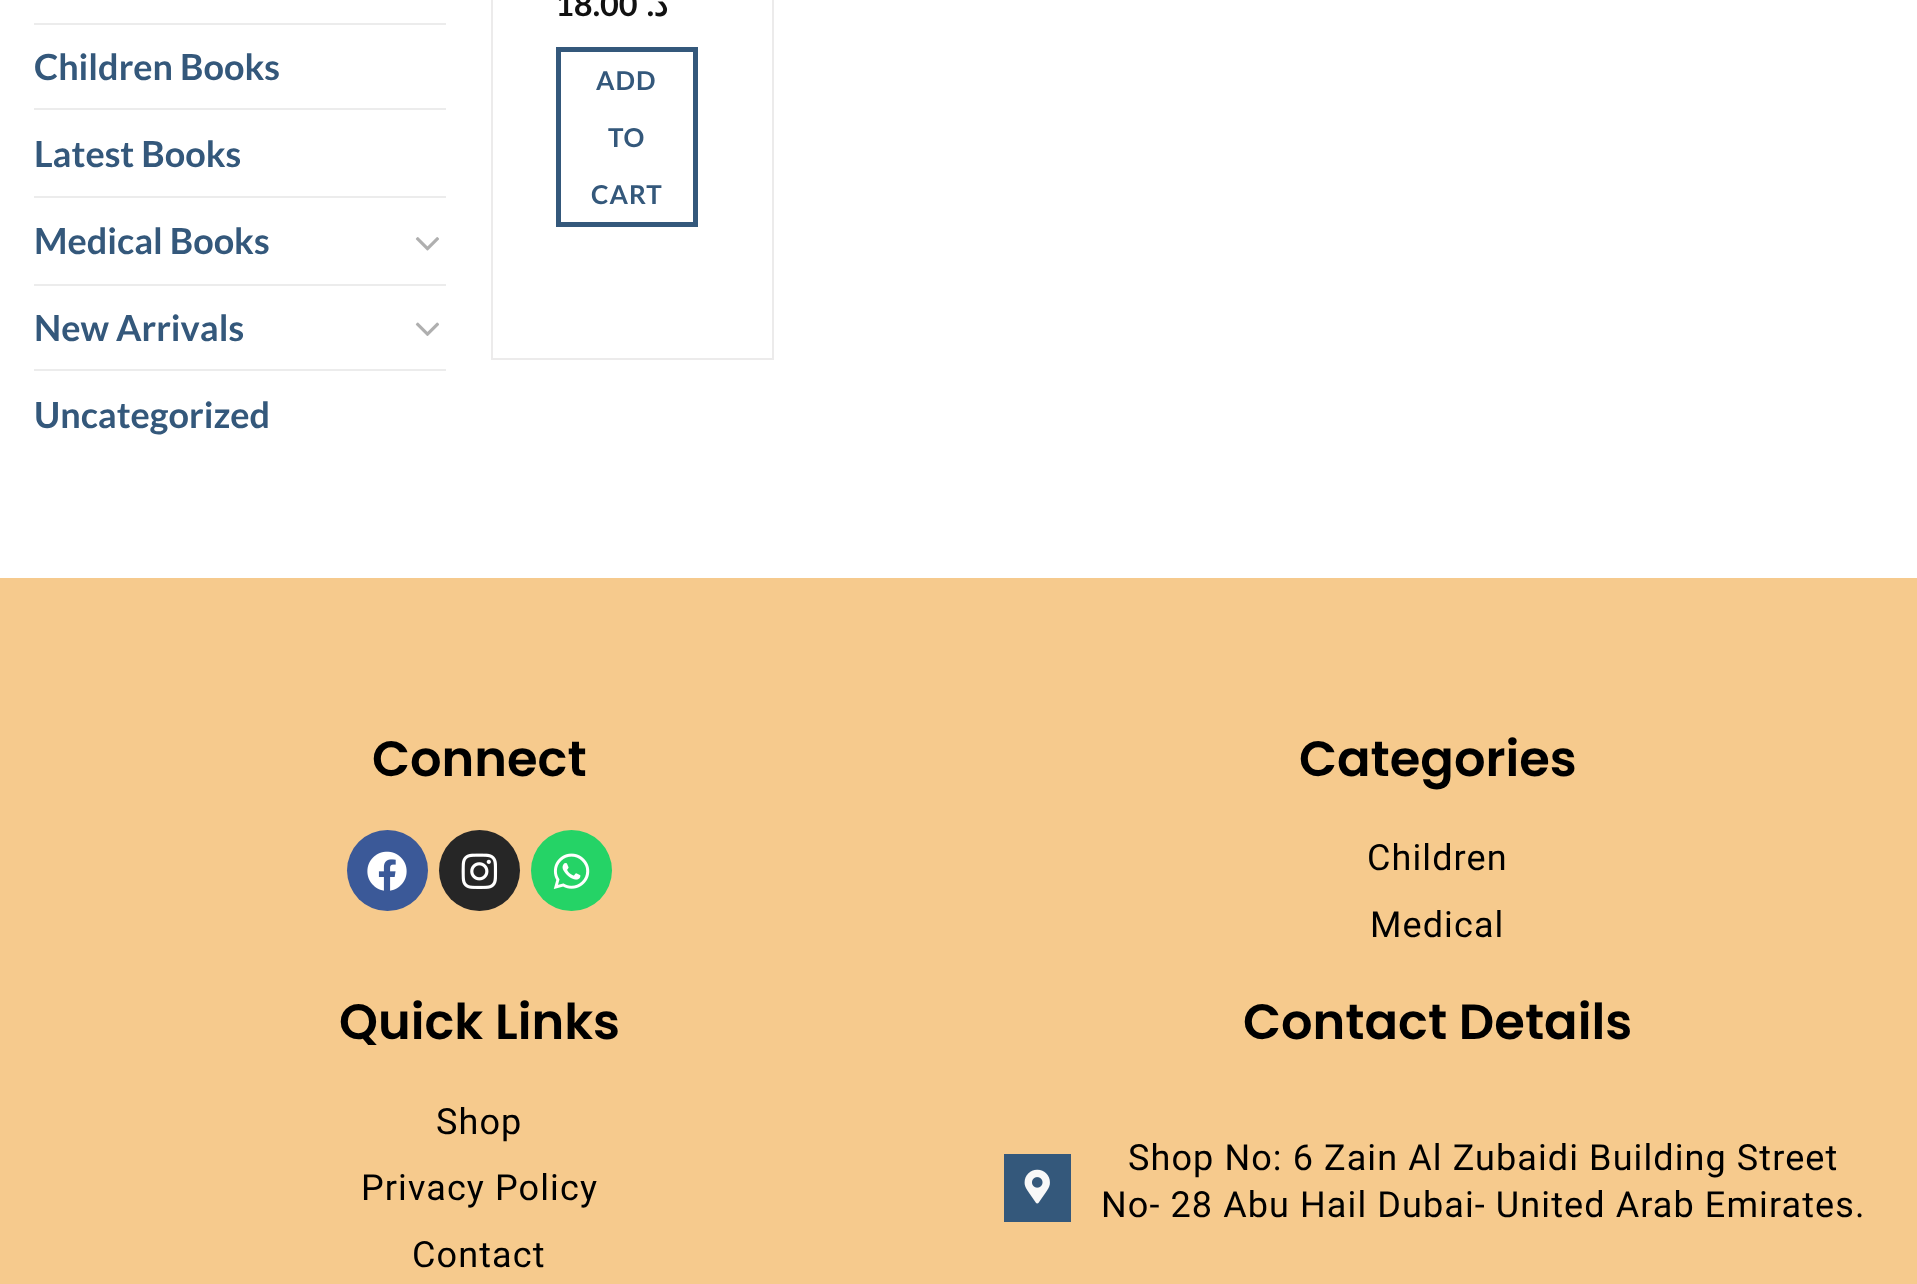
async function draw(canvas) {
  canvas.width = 1917;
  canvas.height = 1284;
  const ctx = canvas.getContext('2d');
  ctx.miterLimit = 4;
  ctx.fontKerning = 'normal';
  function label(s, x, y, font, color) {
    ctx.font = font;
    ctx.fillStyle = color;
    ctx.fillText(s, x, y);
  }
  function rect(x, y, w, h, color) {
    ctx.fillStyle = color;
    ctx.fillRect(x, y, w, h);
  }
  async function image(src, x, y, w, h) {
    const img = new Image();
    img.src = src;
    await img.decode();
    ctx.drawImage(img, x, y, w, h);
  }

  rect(0, 0, 1917, 1284, '#fff');
  rect(34, 23, 412, 2, '#ececec');
  label('Children Books', 34, 80, 'bold 36px Lato', '#34587b');
  rect(34, 108, 412, 2, '#ececec');
  label('Latest Books', 34, 167, 'bold 36px Lato', '#34587b');
  rect(34, 196, 412, 2, '#ececec');
  label('Medical Books', 34, 254, 'bold 36px Lato', '#34587b');
  await image('assets/img1.png', 415, 237, 24, 14);
  rect(34, 284, 412, 2, '#ececec');
  label('New Arrivals', 34, 341, 'bold 36px Lato', '#34587b');
  await image('assets/img2.png', 415, 322, 24, 14);
  rect(34, 369, 412, 2, '#ececec');
  label('Uncategorized', 34, 428, 'bold 36px Lato', '#34587b');
  ctx.strokeStyle = '#ecebeb';
  ctx.lineWidth = 2;
  ctx.strokeRect(492, -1, 281, 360);
  label('18.00', 555, 16, 'bold 32.5px Lato', '#111');
  ctx.direction = 'rtl';
  label('.', 654, 16, 'bold 32.5px Lato', '#111');
  label('د', 668, 16, 'bold 32.5px DejaVu Sans', '#111');
  ctx.strokeStyle = '#34587b';
  ctx.lineWidth = 5;
  ctx.strokeRect(558.5, 49.5, 137, 175);
  ctx.letterSpacing = '1px';
  ctx.direction = 'ltr';
  label('ADD', 596, 90, 'bold 26px Lato', '#34587b');
  label('TO', 608, 147, 'bold 26px Lato', '#34587b');
  label('CART', 591, 204, 'bold 26px Lato', '#34587b');
  rect(0, 578, 1917, 706, '#f6ca8d');
  ctx.letterSpacing = '0px';
  label('Connect', 372, 776, '600 49.5px Poppins', '#000');
  ctx.fillStyle = '#3b5998';
  ctx.beginPath();
  ctx.arc(387.5, 870.5, 40.5, 0, 2 * Math.PI);
  ctx.fill();
  await image('assets/img3.png', 367, 851, 40, 40);
  ctx.fillStyle = '#262626';
  ctx.beginPath();
  ctx.arc(479.5, 870.5, 40.5, 0, 2 * Math.PI);
  ctx.fill();
  await image('assets/img4.png', 461, 853, 37, 36);
  ctx.fillStyle = '#25d366';
  ctx.beginPath();
  ctx.arc(571.5, 870.5, 40.5, 0, 2 * Math.PI);
  ctx.fill();
  await image('assets/img5.png', 553, 853, 37, 36);
  label('Categories', 1299, 776, '600 49.5px Poppins', '#000');
  ctx.letterSpacing = '1.1px';
  label('Children', 1367, 870, '36px Roboto', '#000');
  label('Medical', 1370, 937, '36px Roboto', '#000');
  ctx.letterSpacing = '0px';
  label('Quick Links', 339, 1039, '600 49.5px Poppins', '#000');
  ctx.letterSpacing = '1.1px';
  label('Shop', 436, 1134, '36px Roboto', '#000');
  label('Privacy Policy', 361, 1200, '36px Roboto', '#000');
  label('Contact', 412, 1267, '36px Roboto', '#000');
  ctx.letterSpacing = '0px';
  label('Contact Details', 1243, 1039, '600 49.5px Poppins', '#000');
  rect(1004, 1154, 67, 68, '#34587b');
  await image('assets/img6.png', 1024, 1169, 26, 35);
  ctx.letterSpacing = '1.1px';
  label('Shop No: 6 Zain Al Zubaidi Building Street', 1128, 1170, '36px Roboto', '#000');
  label('No- 28 Abu Hail Dubai- United Arab Emirates.', 1101, 1217, '36px Roboto', '#000');
}

draw(document.querySelector('canvas'));
